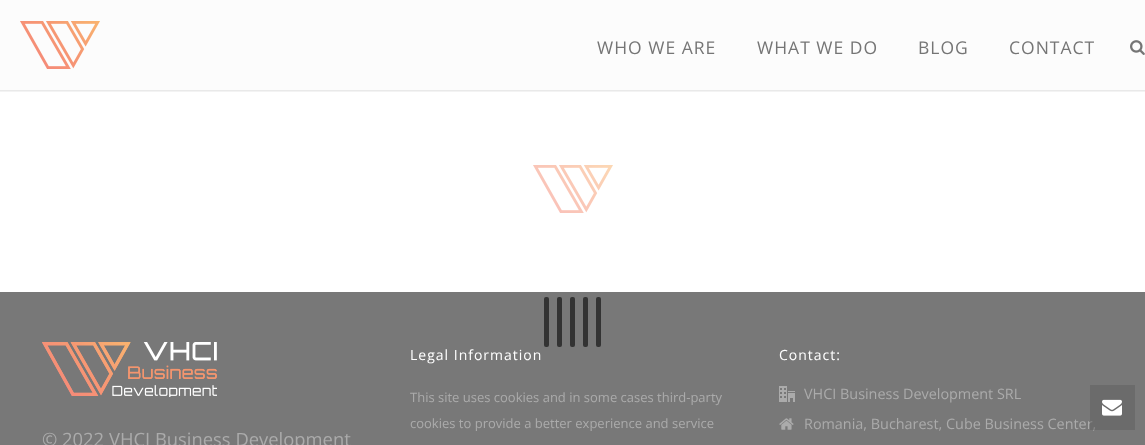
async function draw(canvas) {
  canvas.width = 1145;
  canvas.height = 445;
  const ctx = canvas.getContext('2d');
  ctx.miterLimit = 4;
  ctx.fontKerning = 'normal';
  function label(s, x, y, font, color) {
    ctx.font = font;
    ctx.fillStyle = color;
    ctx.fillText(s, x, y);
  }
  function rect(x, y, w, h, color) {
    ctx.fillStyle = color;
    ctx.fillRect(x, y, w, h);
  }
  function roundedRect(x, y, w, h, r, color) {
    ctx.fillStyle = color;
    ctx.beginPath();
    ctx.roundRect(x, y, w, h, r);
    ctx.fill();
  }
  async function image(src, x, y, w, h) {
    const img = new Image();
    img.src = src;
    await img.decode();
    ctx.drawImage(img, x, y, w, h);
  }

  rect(0, 0, 1145, 445, '#fff');
  rect(0, 91, 1145, 1, '#f3f3f3');
  rect(0, 90, 1145, 1, '#e9e9e9');
  rect(0, 0, 1145, 90, '#fcfcfc');
  await image('assets/img1.png', 20, 21, 80, 48);
  ctx.letterSpacing = '1px';
  label('WHO WE ARE', 597, 54, '17.5px Open Sans', '#757575');
  label('WHAT WE DO', 757, 54, '17.5px Open Sans', '#757575');
  label('BLOG', 918, 54, '17.5px Open Sans', '#757575');
  label('CONTACT', 1009, 54, '17.5px Open Sans', '#757575');
  await image('assets/img2.png', 1130, 40, 15, 15);
  rect(0, 292, 1145, 153, '#787878');
  label('Legal Information', 410, 360, '14px Open Sans', '#fff');
  ctx.letterSpacing = '0px';
  label('This site uses cookies and in some cases third-party', 410, 402, '13px Open Sans', '#ababab');
  label('cookies to provide a better experience and service', 410, 428, '13px Open Sans', '#ababab');
  ctx.letterSpacing = '1px';
  label('Contact:', 779, 360, '14px Open Sans', '#fff');
  await image('assets/img3.png', 779, 386, 16, 16);
  ctx.letterSpacing = '0px';
  label('VHCI Business Development SRL', 804, 399, '14.4px Open Sans', '#ababab');
  await image('assets/img4.png', 779, 418, 15, 12);
  label('Romania, Bucharest, Cube Business Center,', 804, 429, '14.4px Open Sans', '#ababab');
  await image('assets/img5.png', 42, 342, 175, 55);
  label('© 2022 VHCI Business Development', 42, 446, '18.4px Open Sans', '#ababab');
  await image('assets/img6.png', 533, 165, 80, 48);
  roundedRect(544, 297, 5, 50, 2, '#333');
  roundedRect(557, 297, 5, 50, 2, '#333');
  roundedRect(570, 297, 5, 50, 2, '#333');
  roundedRect(583, 297, 5, 50, 2, '#333');
  roundedRect(596, 297, 5, 50, 2, '#333');
  rect(1090, 385, 45, 45, '#57575766');
  await image('assets/img7.png', 1102, 399, 20, 17);
}

draw(document.querySelector('canvas'));
